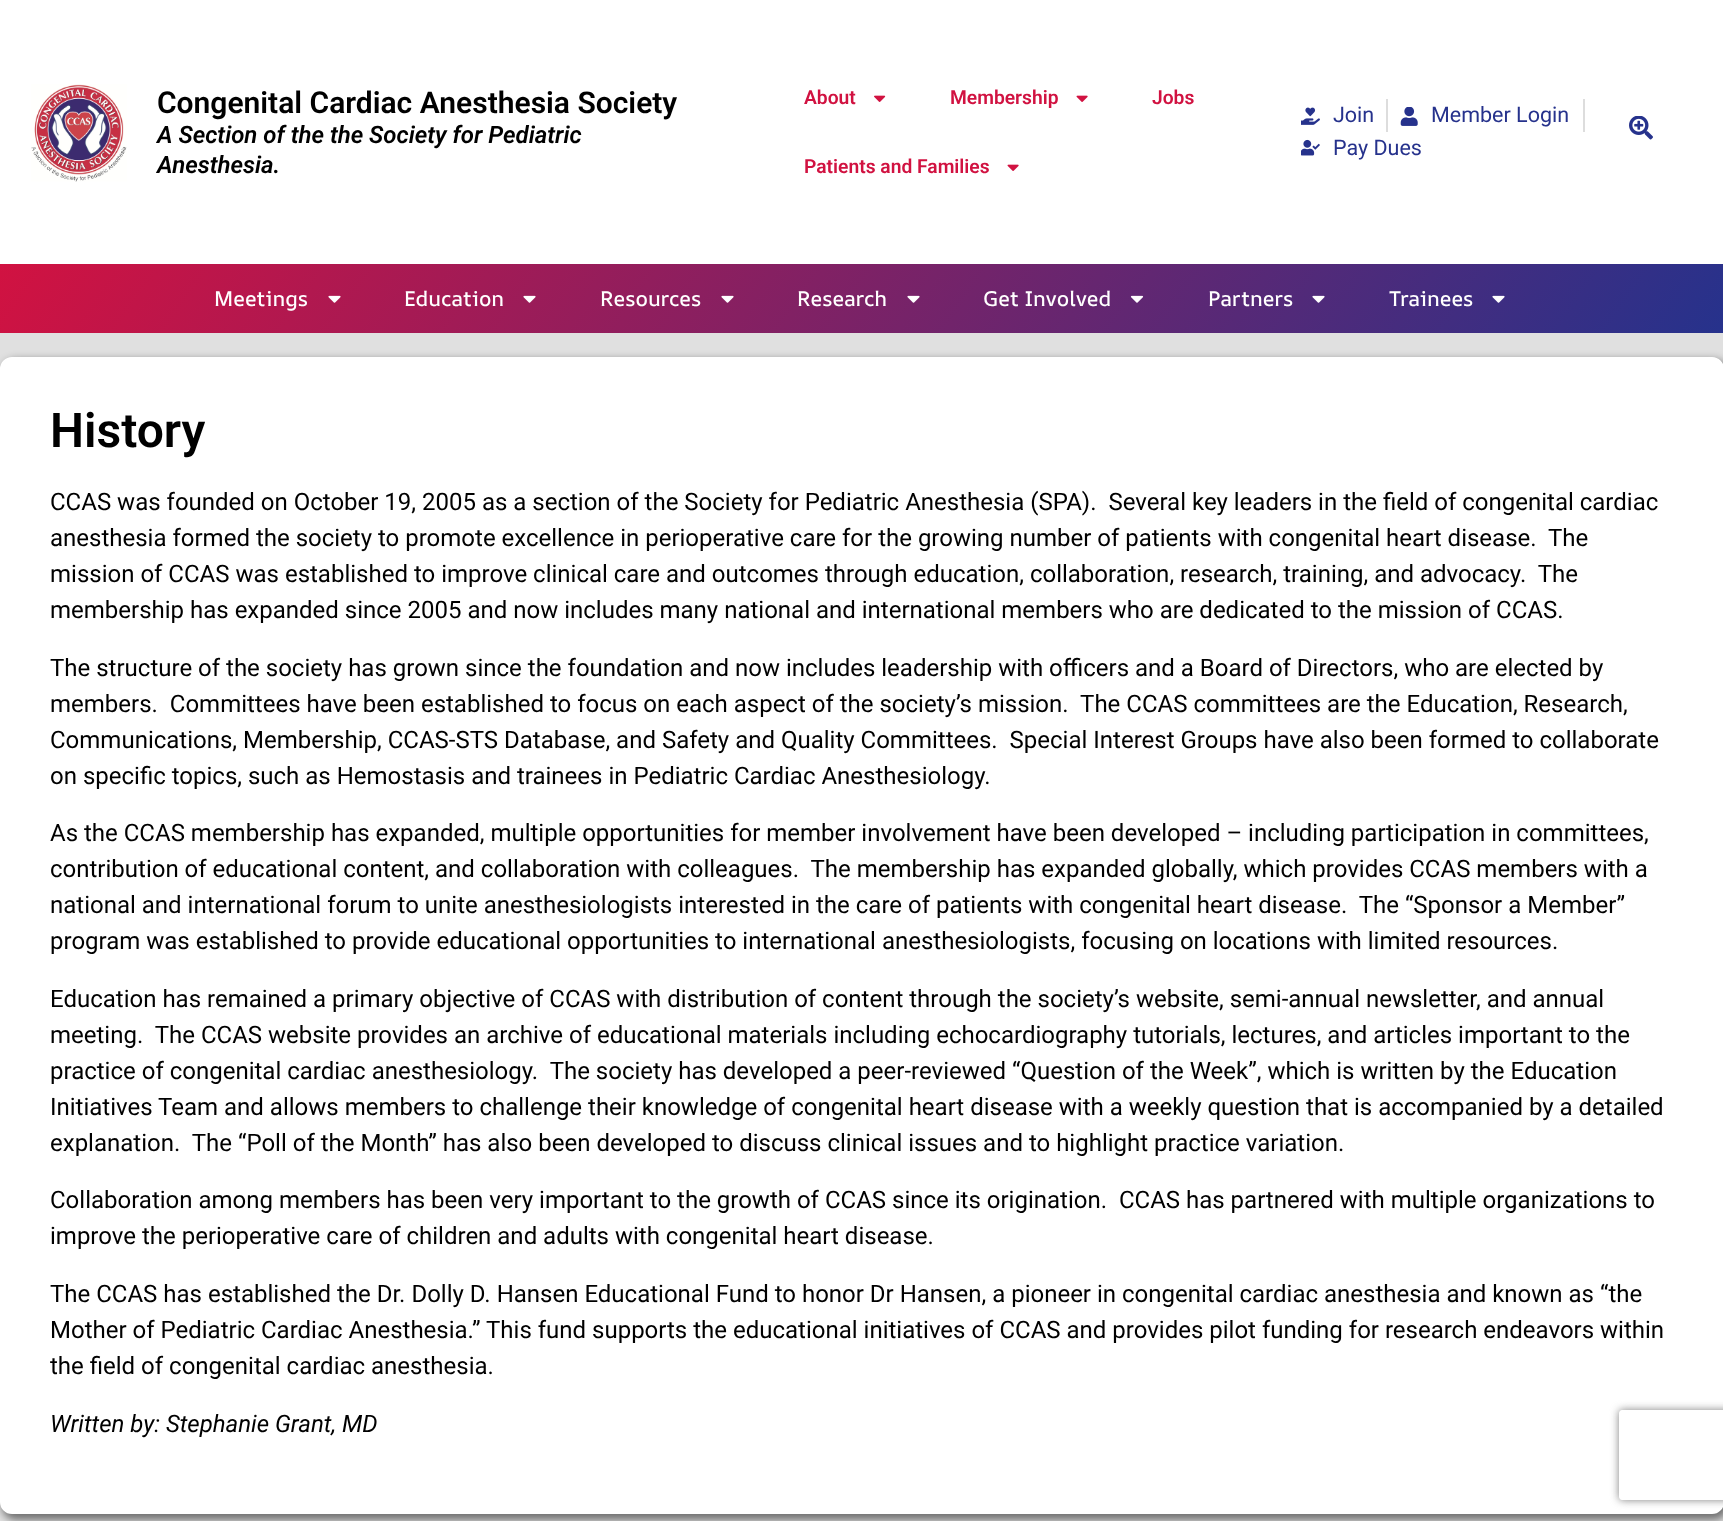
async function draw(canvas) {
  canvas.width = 1723;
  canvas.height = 1521;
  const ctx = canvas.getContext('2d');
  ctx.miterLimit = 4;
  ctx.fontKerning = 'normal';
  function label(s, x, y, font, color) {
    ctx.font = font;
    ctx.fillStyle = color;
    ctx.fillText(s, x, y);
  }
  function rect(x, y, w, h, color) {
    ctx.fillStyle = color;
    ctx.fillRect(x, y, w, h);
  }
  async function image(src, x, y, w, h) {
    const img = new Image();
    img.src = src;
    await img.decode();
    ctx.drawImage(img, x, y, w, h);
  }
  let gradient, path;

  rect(0, 0, 1723, 1521, '#fff');
  await image('assets/img1.png', 31, 84, 96, 98);
  label('Congenital Cardiac Anesthesia Society', 157, 113, '600 30px Roboto', '#000');
  label('A Section of the the Society for Pediatric', 157, 143, 'italic 600 24px Roboto', '#000');
  label('Anesthesia.', 157, 173, 'italic 600 24px Roboto', '#000');
  label('About', 804, 104, '600 19.25px Roboto', '#d11241');
  await image('assets/img2.png', 874, 95, 12, 7);
  label('Membership', 950, 104, '600 19.25px Roboto', '#d11241');
  await image('assets/img3.png', 1076, 95, 12, 7);
  label('Jobs', 1152, 104, '600 19.25px Roboto', '#d11241');
  label('Patients and Families', 804, 173, '600 19.25px Roboto', '#d11241');
  await image('assets/img3.png', 1007, 164, 12, 7);
  await image('assets/img4.png', 1301, 107, 19, 18);
  label('Join', 1333, 122, '21.5px Roboto', '#26328c');
  rect(1386, 99, 2, 33, '#ddd');
  await image('assets/img5.png', 1400, 107, 18, 19);
  label('Member Login', 1431, 122, '21.5px Roboto', '#26328c');
  rect(1583, 99, 2, 33, '#ddd');
  await image('assets/img6.png', 1301, 139, 19, 17);
  label('Pay Dues', 1333, 155, '21.5px Roboto', '#26328c');
  await image('assets/img7.png', 1629, 116, 24, 24);
  gradient = ctx.createLinearGradient(267, -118, 1456, 715);
  gradient.addColorStop(0, '#d11241');
  gradient.addColorStop(1, '#26328c');
  ctx.fillStyle = gradient;
  ctx.fillRect(0, 264, 1723, 69);
  label('Meetings', 214, 306, '500 21px AR One Sans', '#fff');
  await image('assets/img8.png', 328, 295, 13, 8);
  label('Education', 404, 306, '500 21px AR One Sans', '#fff');
  await image('assets/img9.png', 523, 295, 13, 8);
  label('Resources', 600, 306, '500 21px AR One Sans', '#fff');
  await image('assets/img10.png', 721, 295, 13, 8);
  label('Research', 797, 306, '500 21px AR One Sans', '#fff');
  await image('assets/img11.png', 907, 295, 13, 8);
  label('Get Involved', 983, 306, '500 21px AR One Sans', '#fff');
  await image('assets/img12.png', 1130, 295, 14, 8);
  label('Partners', 1208, 306, '500 21px AR One Sans', '#fff');
  await image('assets/img13.png', 1312, 295, 13, 8);
  label('Trainees', 1389, 306, '500 21px AR One Sans', '#fff');
  await image('assets/img14.png', 1492, 295, 13, 8);
  rect(0, 333, 1723, 1188, '#e0e0e0');
  ctx.fillStyle = '#00000080';
  ctx.filter = 'blur(4.5px)';
  ctx.beginPath();
  ctx.roundRect(2, 360, 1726, 1160, 14);
  ctx.fill();
  ctx.filter = 'none';
  ctx.fillStyle = '#fff';
  ctx.beginPath();
  ctx.roundRect(1, 358, 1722, 1155, 11);
  ctx.fill();
  ctx.strokeStyle = '#fff';
  ctx.lineWidth = 2;
  ctx.stroke();
  label('History', 50, 447, '600 48px Roboto', '#000');
  label('CCAS was founded on October 19, 2005 as a section of the Society for Pediatric Anesthesia (SPA).  Several key leaders in the field of congenital cardiac', 50, 510, '24px Roboto', '#000');
  label('anesthesia formed the society to promote excellence in perioperative care for the growing number of patients with congenital heart disease.  The', 50, 546, '24px Roboto', '#000');
  label('mission of CCAS was established to improve clinical care and outcomes through education, collaboration, research, training, and advocacy.  The', 50, 582, '24px Roboto', '#000');
  label('membership has expanded since 2005 and now includes many national and international members who are dedicated to the mission of CCAS.', 50, 618, '24px Roboto', '#000');
  label('The structure of the society has grown since the foundation and now includes leadership with officers and a Board of Directors, who are elected by', 50, 676, '24px Roboto', '#000');
  label('members.  Committees have been established to focus on each aspect of the society’s mission.  The CCAS committees are the Education, Research,', 50, 712, '24px Roboto', '#000');
  label('Communications, Membership, CCAS-STS Database, and Safety and Quality Committees.  Special Interest Groups have also been formed to collaborate', 50, 748, '24px Roboto', '#000');
  label('on specific topics, such as Hemostasis and trainees in Pediatric Cardiac Anesthesiology.', 50, 784, '24px Roboto', '#000');
  label('As the CCAS membership has expanded, multiple opportunities for member involvement have been developed – including participation in committees,', 50, 841, '24px Roboto', '#000');
  label('contribution of educational content, and collaboration with colleagues.  The membership has expanded globally, which provides CCAS members with a', 50, 877, '24px Roboto', '#000');
  label('national and international forum to unite anesthesiologists interested in the care of patients with congenital heart disease.  The “Sponsor a Member”', 50, 913, '24px Roboto', '#000');
  label('program was established to provide educational opportunities to international anesthesiologists, focusing on locations with limited resources.', 50, 949, '24px Roboto', '#000');
  label('Education has remained a primary objective of CCAS with distribution of content through the society’s website, semi-annual newsletter, and annual', 50, 1007, '24px Roboto', '#000');
  label('meeting.  The CCAS website provides an archive of educational materials including echocardiography tutorials, lectures, and articles important to the', 50, 1043, '24px Roboto', '#000');
  label('practice of congenital cardiac anesthesiology.  The society has developed a peer-reviewed “Question of the Week”, which is written by the Education', 50, 1079, '24px Roboto', '#000');
  label('Initiatives Team and allows members to challenge their knowledge of congenital heart disease with a weekly question that is accompanied by a detailed', 50, 1115, '24px Roboto', '#000');
  label('explanation.  The “Poll of the Month” has also been developed to discuss clinical issues and to highlight practice variation.', 50, 1151, '24px Roboto', '#000');
  label('Collaboration among members has been very important to the growth of CCAS since its origination.  CCAS has partnered with multiple organizations to', 50, 1208, '24px Roboto', '#000');
  label('improve the perioperative care of children and adults with congenital heart disease.', 50, 1244, '24px Roboto', '#000');
  label('The CCAS has established the Dr. Dolly D. Hansen Educational Fund to honor Dr Hansen, a pioneer in congenital cardiac anesthesia and known as “the', 50, 1302, '24px Roboto', '#000');
  label('Mother of Pediatric Cardiac Anesthesia.” This fund supports the educational initiatives of CCAS and provides pilot funding for research endeavors within', 50, 1338, '24px Roboto', '#000');
  label('the field of congenital cardiac anesthesia.', 50, 1374, '24px Roboto', '#000');
  label('Written by: Stephanie Grant, MD', 50, 1432, 'italic 24px Roboto', '#000');
  ctx.save();
  path = new Path2D('M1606 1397H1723V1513H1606ZM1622 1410H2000C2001.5 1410 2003 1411.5 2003 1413V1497C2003 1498.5 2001.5 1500 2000 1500H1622C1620.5 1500 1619 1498.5 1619 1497V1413C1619 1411.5 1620.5 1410 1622 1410Z');
  ctx.clip(path, 'evenodd');
  ctx.fillStyle = '#808080';
  ctx.filter = 'blur(4px)';
  ctx.beginPath();
  ctx.roundRect(1619, 1410, 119, 90, 3);
  ctx.fill();
  ctx.filter = 'none';
  ctx.restore();
}

draw(document.querySelector('canvas'));
